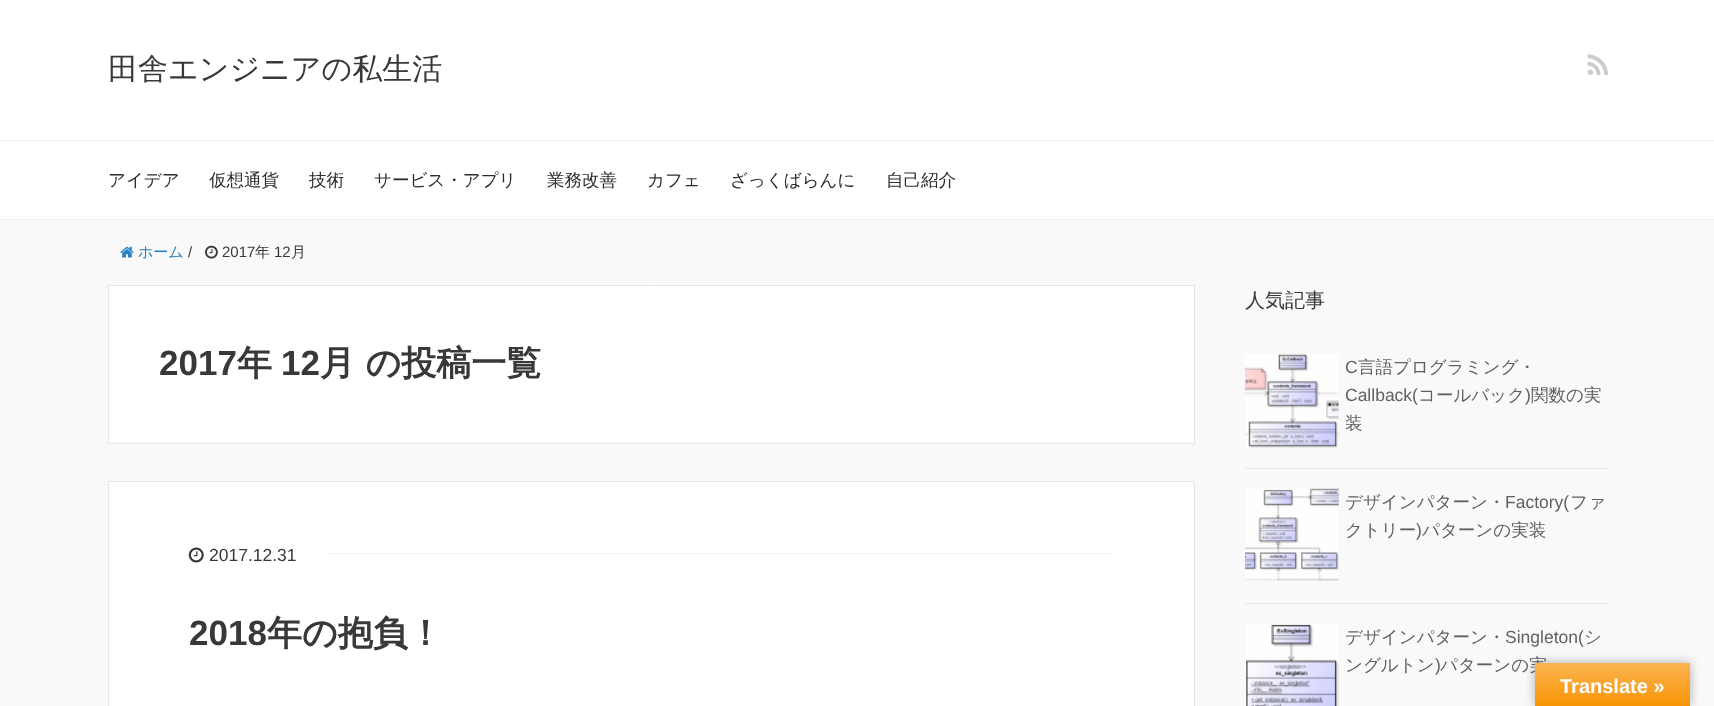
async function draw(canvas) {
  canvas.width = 1714;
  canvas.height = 706;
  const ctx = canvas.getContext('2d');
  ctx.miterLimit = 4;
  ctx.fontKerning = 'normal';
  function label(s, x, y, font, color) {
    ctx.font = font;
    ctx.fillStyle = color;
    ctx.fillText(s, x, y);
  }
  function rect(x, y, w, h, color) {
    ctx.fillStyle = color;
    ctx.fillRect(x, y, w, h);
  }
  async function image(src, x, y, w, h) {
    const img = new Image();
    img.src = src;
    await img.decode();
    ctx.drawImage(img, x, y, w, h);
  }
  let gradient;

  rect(0, 0, 1714, 706, '#f9f9f9');
  rect(0, 0, 1714, 140, '#fff');
  label('田舎エンジニアの私生活', 108, 79, '500 30px WenQuanYi Zen Hei', '#383838');
  await image('assets/img1.png', 1587, 54, 21, 21);
  rect(0, 141, 1714, 78, '#fff');
  rect(0, 140, 1714, 1, '#efefef');
  rect(0, 219, 1714, 1, '#efefef');
  label('アイデア', 108, 186, '500 17.5px WenQuanYi Zen Hei', '#2b2d2d');
  label('仮想通貨', 209, 186, '500 17.5px WenQuanYi Zen Hei', '#2b2d2d');
  label('技術', 309, 186, '500 17.5px WenQuanYi Zen Hei', '#2b2d2d');
  label('サービス・アプリ', 374, 186, '500 17.5px WenQuanYi Zen Hei', '#2b2d2d');
  label('業務改善', 547, 186, '500 17.5px WenQuanYi Zen Hei', '#2b2d2d');
  label('カフェ', 647, 186, '500 17.5px WenQuanYi Zen Hei', '#2b2d2d');
  label('ざっくばらんに', 730, 186, '500 17.5px WenQuanYi Zen Hei', '#2b2d2d');
  label('自己紹介', 886, 186, '500 17.5px WenQuanYi Zen Hei', '#2b2d2d');
  await image('assets/img2.png', 120, 246, 14, 12);
  label('ホーム', 138, 257, '500 15px WenQuanYi Zen Hei', '#2581c4');
  label('/', 188, 257, '15px Liberation Sans', '#383838');
  await image('assets/img3.png', 205, 245, 13, 14);
  label('2017', 222, 257, '15px Liberation Sans', '#383838');
  label('年', 255, 257, '500 15px WenQuanYi Zen Hei', '#383838');
  label('12', 274, 257, '15px Liberation Sans', '#383838');
  label('月', 291, 257, '500 15px WenQuanYi Zen Hei', '#383838');
  ctx.fillStyle = '#fff';
  ctx.beginPath();
  ctx.rect(108.5, 285.5, 1086, 158);
  ctx.fill();
  ctx.strokeStyle = '#e5e5e5';
  ctx.stroke();
  label('2017', 159, 375, 'bold 35px Liberation Sans', '#383838');
  label('年', 237, 375, 'bold 35px WenQuanYi Zen Hei', '#383838');
  label('12', 281, 375, 'bold 35px Liberation Sans', '#383838');
  label('月 の投稿一覧', 320, 375, 'bold 35px WenQuanYi Zen Hei', '#383838');
  ctx.fillStyle = '#fff';
  ctx.beginPath();
  ctx.rect(108.5, 481.5, 1086, 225);
  ctx.fill();
  ctx.stroke();
  rect(326, 553, 788, 1, '#efefef');
  await image('assets/img4.png', 188, 547, 16, 16);
  label('2017.12.31', 209, 561, '17.5px Liberation Sans', '#383838');
  label('2018', 189, 645, 'bold 35px Liberation Sans', '#383838');
  label('年の抱負！', 267, 645, 'bold 35px WenQuanYi Zen Hei', '#383838');
  label('人気記事', 1245, 307, '500 20px WenQuanYi Zen Hei', '#383838');
  rect(1245, 468, 363, 1, '#e5e5e5');
  await image('assets/img5.png', 1245, 353, 94, 95);
  label('C', 1345, 373, '17.5px Liberation Sans', '#5e6265');
  label('言語プログラミング・', 1358, 373, '500 17.5px WenQuanYi Zen Hei', '#5e6265');
  label('Callback(', 1345, 401, '17.5px Liberation Sans', '#5e6265');
  label('コールバック', 1418, 401, '500 17.5px WenQuanYi Zen Hei', '#5e6265');
  label(')', 1525, 401, '17.5px Liberation Sans', '#5e6265');
  label('関数の実', 1531, 401, '500 17.5px WenQuanYi Zen Hei', '#5e6265');
  label('装', 1345, 429, '500 17.5px WenQuanYi Zen Hei', '#5e6265');
  rect(1245, 603, 363, 1, '#e5e5e5');
  await image('assets/img6.png', 1245, 488, 94, 93);
  label('デザインパターン・', 1345, 508, '500 17.5px WenQuanYi Zen Hei', '#5e6265');
  label('Factory(', 1505, 508, '17.5px Liberation Sans', '#5e6265');
  label('ファ', 1570, 508, '500 17.5px WenQuanYi Zen Hei', '#5e6265');
  label('クトリー', 1345, 536, '500 17.5px WenQuanYi Zen Hei', '#5e6265');
  label(')', 1416, 536, '17.5px Liberation Sans', '#5e6265');
  label('パターンの実装', 1422, 536, '500 17.5px WenQuanYi Zen Hei', '#5e6265');
  await image('assets/img7.png', 1245, 624, 94, 82);
  label('デザインパターン・', 1345, 643, '500 17.5px WenQuanYi Zen Hei', '#5e6265');
  label('Singleton(', 1505, 643, '17.5px Liberation Sans', '#5e6265');
  label('シ', 1584, 643, '500 17.5px WenQuanYi Zen Hei', '#5e6265');
  label('ングルトン', 1345, 671, '500 17.5px WenQuanYi Zen Hei', '#5e6265');
  label(')', 1435, 671, '17.5px Liberation Sans', '#5e6265');
  label('パターンの実', 1440, 671, '500 17.5px WenQuanYi Zen Hei', '#5e6265');
  ctx.fillStyle = '#0000004d';
  ctx.filter = 'blur(5.5px)';
  ctx.beginPath();
  ctx.rect(1535, 663, 155, 43);
  ctx.fill();
  ctx.filter = 'none';
  gradient = ctx.createLinearGradient(1613, 663, 1613, 706);
  gradient.addColorStop(0, '#fbb450');
  gradient.addColorStop(1, '#f89406');
  ctx.fillStyle = gradient;
  ctx.fillRect(1535, 663, 155, 43);
  label('Translate »', 1560, 693, 'bold 20px Liberation Sans', '#fff');
}

draw(document.querySelector('canvas'));
